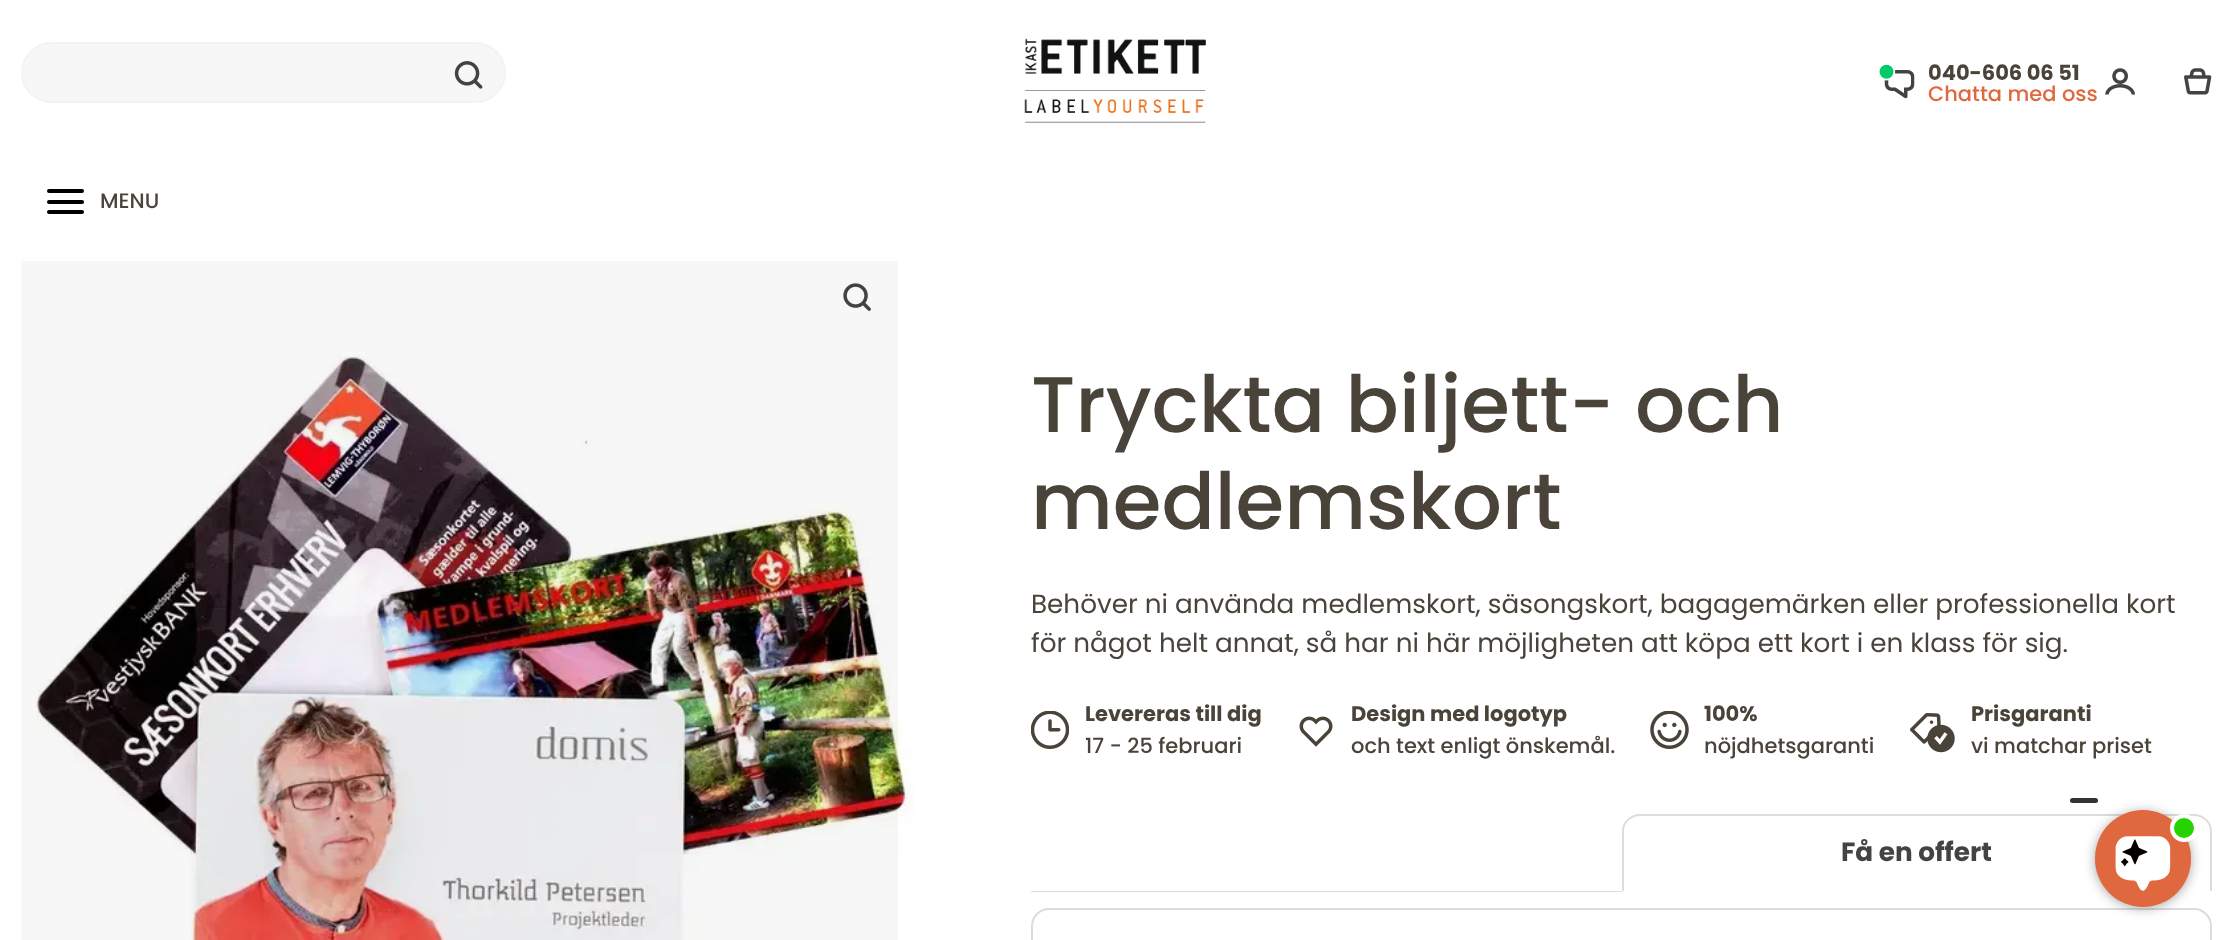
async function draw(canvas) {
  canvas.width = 2233;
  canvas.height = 940;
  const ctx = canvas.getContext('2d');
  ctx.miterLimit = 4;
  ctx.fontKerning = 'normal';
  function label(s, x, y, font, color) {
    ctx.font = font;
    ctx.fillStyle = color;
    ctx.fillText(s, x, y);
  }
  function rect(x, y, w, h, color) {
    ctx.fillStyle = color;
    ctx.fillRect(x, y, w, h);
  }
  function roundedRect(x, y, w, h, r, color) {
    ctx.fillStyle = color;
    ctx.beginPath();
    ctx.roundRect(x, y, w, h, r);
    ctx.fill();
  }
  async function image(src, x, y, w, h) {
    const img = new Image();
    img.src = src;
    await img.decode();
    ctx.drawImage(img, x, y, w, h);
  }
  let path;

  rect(0, 0, 2233, 940, '#fff');
  ctx.fillStyle = '#f7f7f7';
  ctx.beginPath();
  ctx.roundRect(22, 43, 483, 59, 29.5);
  ctx.fill();
  ctx.strokeStyle = '#f3f3f3';
  ctx.lineWidth = 2;
  ctx.stroke();
  await image('assets/img1.png', 454, 61, 29, 28);
  await image('assets/img2.png', 1024, 38, 182, 85);
  await image('assets/img3.png', 1879, 64, 36, 35);
  label('040-606 06 51', 1928, 80, 'bold 21px Poppins', '#4a4339');
  label('Chatta med oss', 1928, 101, '500 21px Poppins', '#e0683e');
  await image('assets/img4.png', 2105, 68, 30, 27);
  await image('assets/img5.png', 2184, 68, 28, 27);
  roundedRect(47, 189, 37, 4, 2, '#000');
  roundedRect(47, 200, 37, 4, 2, '#000');
  roundedRect(47, 210, 37, 4, 2, '#000');
  label('MENU', 100, 208, '500 21px Poppins', '#4a4339');
  await image('assets/img6.png', 34, 356, 881, 584);
  rect(21, 261, 877, 679, '#00000008');
  await image('assets/img7.png', 843, 283, 28, 28);
  label('Tryckta biljett- och', 1031, 432, '500 78.75px Poppins', '#4a4339');
  label('medlemskort', 1031, 529, '500 78.75px Poppins', '#4a4339');
  label('Behöver ni använda medlemskort, säsongskort, bagagemärken eller professionella kort', 1031, 613, '26.25px Poppins', '#4a4339');
  label('för något helt annat, så har ni här möjligheten att köpa ett kort i en klass för sig.', 1031, 652, '26.25px Poppins', '#4a4339');
  await image('assets/img8.png', 1031, 711, 38, 38);
  label('Levereras till dig', 1085, 721, 'bold 21px Poppins', '#4a4339');
  label('17 - 25 februari', 1085, 753, '500 21px Poppins', '#4a4339');
  await image('assets/img9.png', 1299, 716, 34, 31);
  label('Design med logotyp', 1351, 721, 'bold 21px Poppins', '#4a4339');
  label('och text enligt önskemål.', 1351, 753, '500 21px Poppins', '#4a4339');
  await image('assets/img10.png', 1650, 711, 39, 38);
  label('100%', 1704, 721, 'bold 21px Poppins', '#4a4339');
  label('nöjdhetsgaranti', 1704, 753, '500 21px Poppins', '#4a4339');
  await image('assets/img11.png', 1910, 713, 45, 40);
  label('Prisgaranti', 1971, 721, 'bold 21px Poppins', '#4a4339');
  label('vi matchar priset', 1971, 753, '500 21px Poppins', '#4a4339');
  ctx.fillStyle = '#dcdcdc';
  path = new Path2D('M1640 814H2194C2204 814 2212 822 2212 831V891H1622V831C1622 822 1630 814 1640 814ZM1640 816H2194C2203 816 2210 823 2210 831V891H1624V831C1624 823 1631 816 1640 816Z');
  ctx.fill(path, 'evenodd');
  label('Få en offert', 1841, 861, 'bold 26.25px Poppins', '#434343');
  rect(1031, 891, 591, 1, '#dcdcdc');
  ctx.beginPath();
  ctx.roundRect(1032, 909, 1179, 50, 17);
  ctx.strokeStyle = '#dcdcdc';
  ctx.stroke();
  roundedRect(2070, 798, 28, 5, 2.5, '#333');
  ctx.fillStyle = '#00000059';
  ctx.filter = 'blur(6px)';
  ctx.beginPath();
  ctx.roundRect(2095, 812, 96, 96, 48);
  ctx.fill();
  ctx.filter = 'none';
  roundedRect(2095, 810, 96, 97, 48, '#e0683e');
  await image('assets/img12.png', 2115, 836, 56, 55);
  ctx.fillStyle = '#25d300';
  ctx.beginPath();
  ctx.arc(2184, 828, 12, 0, 2 * Math.PI);
  ctx.fill();
  ctx.strokeStyle = '#fff';
  ctx.lineWidth = 4;
  ctx.stroke();
}

draw(document.querySelector('canvas'));
